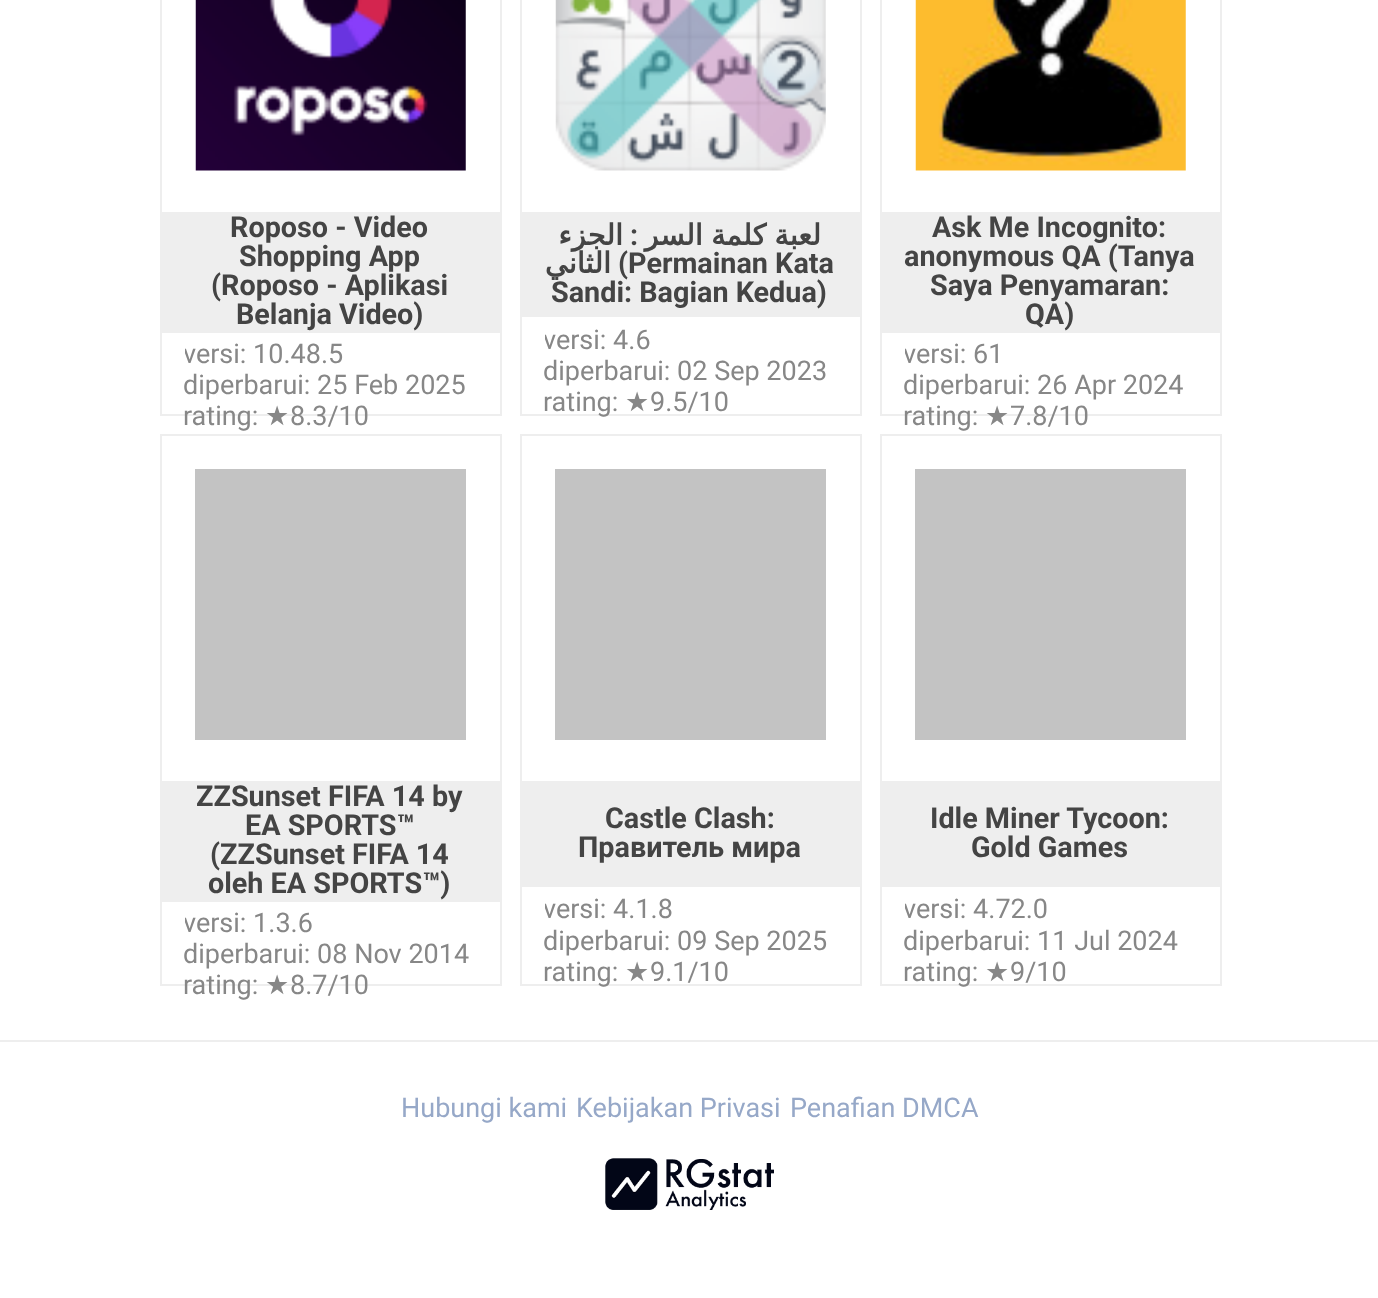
async function draw(canvas) {
  canvas.width = 1378;
  canvas.height = 1298;
  const ctx = canvas.getContext('2d');
  ctx.miterLimit = 4;
  ctx.fontKerning = 'normal';
  function label(s, x, y, font, color) {
    ctx.font = font;
    ctx.fillStyle = color;
    ctx.fillText(s, x, y);
  }
  function rect(x, y, w, h, color) {
    ctx.fillStyle = color;
    ctx.fillRect(x, y, w, h);
  }
  async function image(src, x, y, w, h) {
    const img = new Image();
    img.src = src;
    await img.decode();
    ctx.drawImage(img, x, y, w, h);
  }

  rect(0, 0, 1378, 1298, '#fff');
  ctx.strokeStyle = '#eee';
  ctx.lineWidth = 2;
  ctx.strokeRect(161, -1, 340, 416);
  await image('assets/img1.png', 195, 0, 271, 171);
  rect(162, 212, 338, 121, '#eee');
  label('Roposo - Video', 230, 237, 'bold 28.75px Roboto', '#444');
  label('Shopping App', 239, 266, 'bold 28.75px Roboto', '#444');
  label('(Roposo - Aplikasi', 211, 295, 'bold 28.75px Roboto', '#444');
  label('Belanja Video)', 236, 324, 'bold 28.75px Roboto', '#444');
  ctx.save();
  ctx.beginPath();
  ctx.rect(185, 340, 315, 31);
  ctx.clip();
  label('versi: 10.48.5', 183, 363, '27px Roboto', '#878787');
  ctx.restore();
  label('diperbarui: 25 Feb 2025', 183, 394, '27px Roboto', '#878787');
  label('rating:', 183, 425, '27px Roboto', '#878787');
  label('★', 265, 425, '27px DejaVu Sans', '#878787');
  label('8.3/10', 290, 425, '27px Roboto', '#878787');
  ctx.strokeRect(521, -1, 340, 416);
  await image('assets/img2.png', 555, 0, 271, 171);
  rect(522, 212, 338, 105, '#eee');
  ctx.direction = 'rtl';
  label('الجزء', 623, 245, 'bold 28.75px DejaVu Sans', '#444');
  label(':', 638, 245, 'bold 28.75px Roboto', '#444');
  ctx.wordSpacing = '-1px';
  label('لعبة كلمة السر', 821, 245, 'bold 28.75px DejaVu Sans', '#444');
  ctx.wordSpacing = '0px';
  label('الثاني', 611, 273, 'bold 28.75px DejaVu Sans', '#444');
  ctx.direction = 'ltr';
  label('(Permainan Kata', 618, 273, 'bold 28.75px Roboto', '#444');
  label('Sandi: Bagian Kedua)', 551, 302, 'bold 28.75px Roboto', '#444');
  ctx.save();
  ctx.beginPath();
  ctx.rect(545, 326, 315, 32);
  ctx.clip();
  label('versi: 4.6', 543, 349, '27px Roboto', '#878787');
  ctx.restore();
  label('diperbarui: 02 Sep 2023', 543, 380, '27px Roboto', '#878787');
  label('rating:', 543, 411, '27px Roboto', '#878787');
  label('★', 625, 411, '27px DejaVu Sans', '#878787');
  label('9.5/10', 650, 411, '27px Roboto', '#878787');
  ctx.strokeRect(881, -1, 340, 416);
  await image('assets/img3.png', 915, 0, 271, 171);
  rect(882, 212, 338, 121, '#eee');
  label('Ask Me Incognito:', 932, 237, 'bold 28.75px Roboto', '#444');
  label('anonymous QA (Tanya', 904, 266, 'bold 28.75px Roboto', '#444');
  label('Saya Penyamaran:', 930, 295, 'bold 28.75px Roboto', '#444');
  label('QA)', 1025, 324, 'bold 28.75px Roboto', '#444');
  ctx.save();
  ctx.beginPath();
  ctx.rect(905, 340, 315, 31);
  ctx.clip();
  label('versi: 61', 903, 363, '27px Roboto', '#878787');
  ctx.restore();
  label('diperbarui: 26 Apr 2024', 903, 394, '27px Roboto', '#878787');
  label('rating:', 903, 425, '27px Roboto', '#878787');
  label('★', 985, 425, '27px DejaVu Sans', '#878787');
  label('7.8/10', 1010, 425, '27px Roboto', '#878787');
  ctx.strokeRect(161, 435, 340, 550);
  rect(195, 469, 271, 271, '#c3c3c3');
  rect(162, 781, 338, 121, '#eee');
  label('ZZSunset FIFA 14 by', 196, 806, 'bold 28.75px Roboto', '#444');
  label('EA SPORTS™', 245, 835, 'bold 28.75px Roboto', '#444');
  label('(ZZSunset FIFA 14', 210, 864, 'bold 28.75px Roboto', '#444');
  label('oleh EA SPORTS™)', 208, 893, 'bold 28.75px Roboto', '#444');
  ctx.save();
  ctx.beginPath();
  ctx.rect(185, 909, 315, 32);
  ctx.clip();
  label('versi: 1.3.6', 183, 932, '27px Roboto', '#878787');
  ctx.restore();
  label('diperbarui: 08 Nov 2014', 183, 963, '27px Roboto', '#878787');
  label('rating:', 183, 994, '27px Roboto', '#878787');
  label('★', 265, 994, '27px DejaVu Sans', '#878787');
  label('8.7/10', 290, 994, '27px Roboto', '#878787');
  ctx.strokeRect(521, 435, 340, 550);
  rect(555, 469, 271, 271, '#c3c3c3');
  rect(522, 781, 338, 106, '#eee');
  label('Castle Clash:', 605, 828, 'bold 28.75px Roboto', '#444');
  label('Правитель мира', 578, 857, 'bold 28.75px Roboto', '#444');
  ctx.save();
  ctx.beginPath();
  ctx.rect(545, 896, 315, 31);
  ctx.clip();
  label('versi: 4.1.8', 543, 918, '27px Roboto', '#878787');
  ctx.restore();
  label('diperbarui: 09 Sep 2025', 543, 950, '27px Roboto', '#878787');
  label('rating:', 543, 981, '27px Roboto', '#878787');
  label('★', 625, 981, '27px DejaVu Sans', '#878787');
  label('9.1/10', 650, 981, '27px Roboto', '#878787');
  ctx.strokeRect(881, 435, 340, 550);
  rect(915, 469, 271, 271, '#c3c3c3');
  rect(882, 781, 338, 106, '#eee');
  label('Idle Miner Tycoon:', 930, 828, 'bold 28.75px Roboto', '#444');
  label('Gold Games', 971, 857, 'bold 28.75px Roboto', '#444');
  ctx.save();
  ctx.beginPath();
  ctx.rect(905, 896, 315, 31);
  ctx.clip();
  label('versi: 4.72.0', 903, 918, '27px Roboto', '#878787');
  ctx.restore();
  label('diperbarui: 11 Jul 2024', 903, 950, '27px Roboto', '#878787');
  label('rating:', 903, 981, '27px Roboto', '#878787');
  label('★', 985, 981, '27px DejaVu Sans', '#878787');
  label('9/10', 1010, 981, '27px Roboto', '#878787');
  rect(0, 1040, 1378, 2, '#eee');
  label('Hubungi kami', 401, 1117, '27px Roboto', '#96a8c8');
  label('Kebijakan Privasi', 576, 1117, '27px Roboto', '#96a8c8');
  label('Penafian DMCA', 790, 1117, '27px Roboto', '#96a8c8');
  await image('assets/img4.png', 605, 1158, 169, 52);
}

draw(document.querySelector('canvas'));
